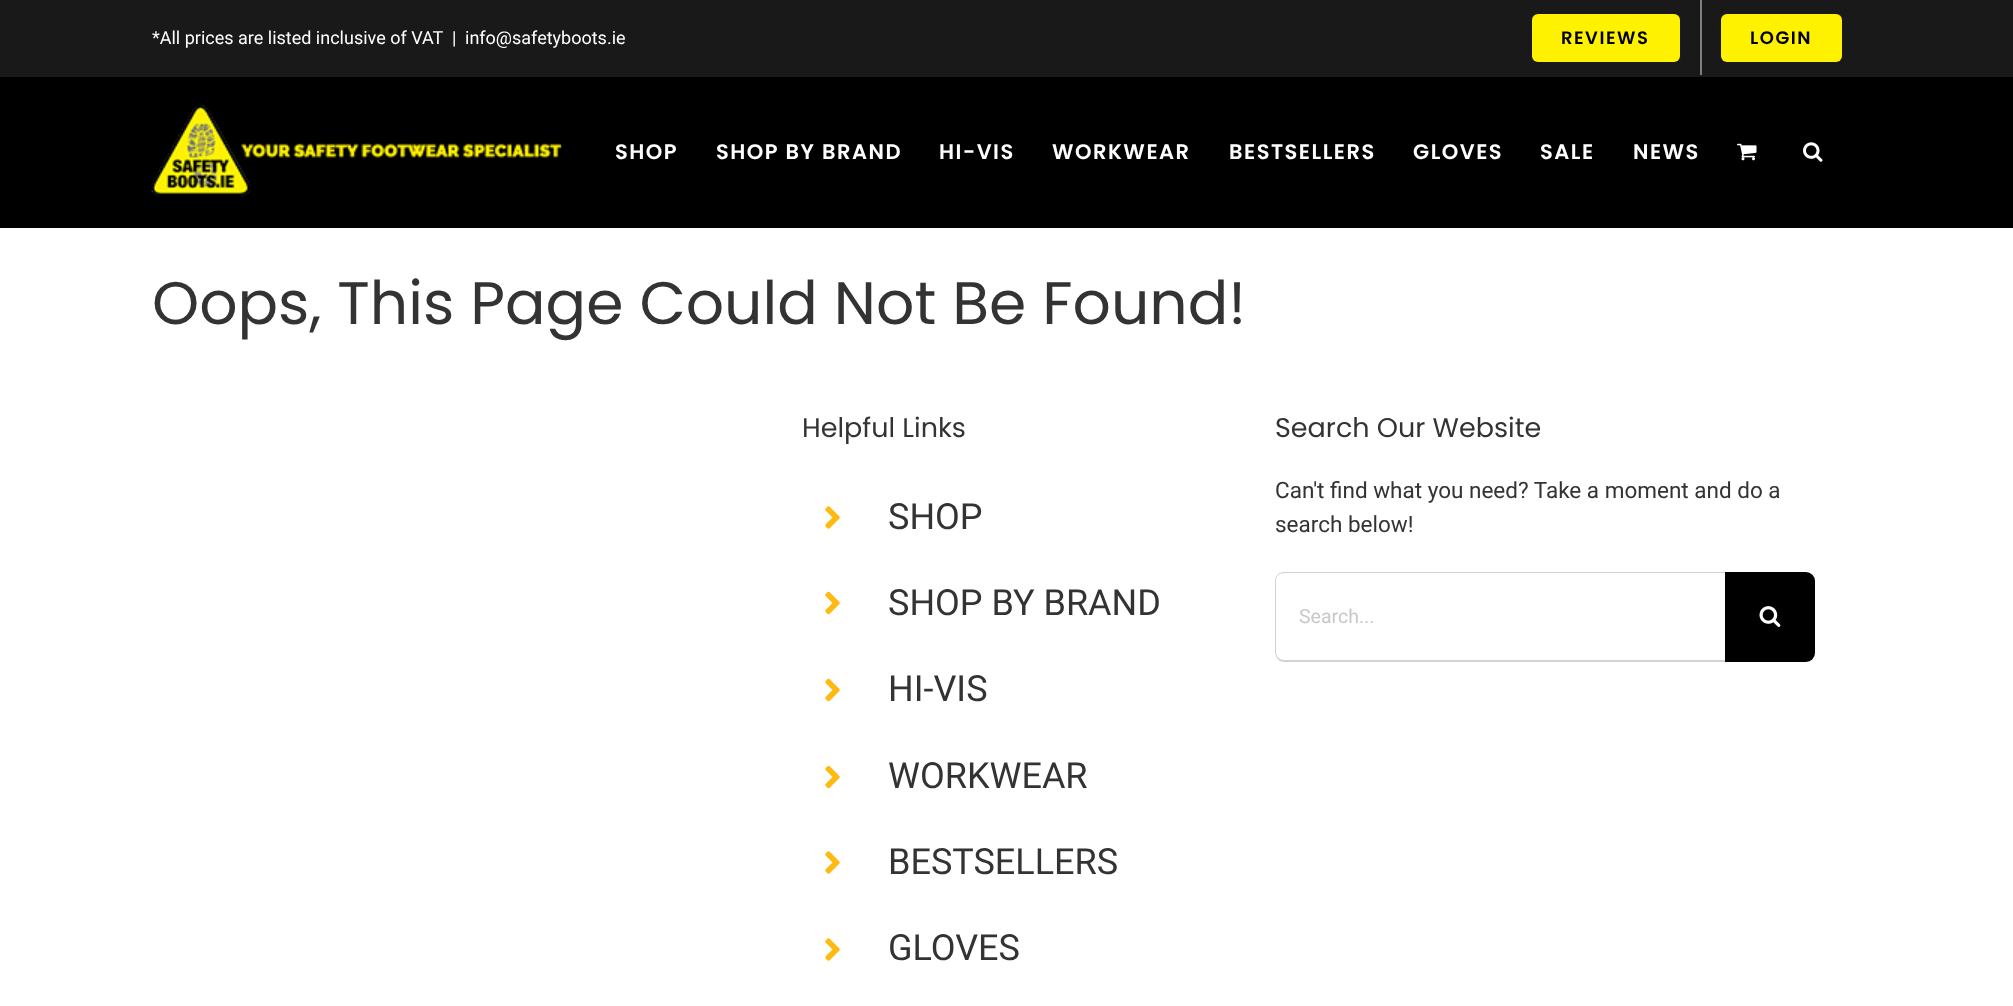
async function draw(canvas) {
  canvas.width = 2013;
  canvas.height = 1006;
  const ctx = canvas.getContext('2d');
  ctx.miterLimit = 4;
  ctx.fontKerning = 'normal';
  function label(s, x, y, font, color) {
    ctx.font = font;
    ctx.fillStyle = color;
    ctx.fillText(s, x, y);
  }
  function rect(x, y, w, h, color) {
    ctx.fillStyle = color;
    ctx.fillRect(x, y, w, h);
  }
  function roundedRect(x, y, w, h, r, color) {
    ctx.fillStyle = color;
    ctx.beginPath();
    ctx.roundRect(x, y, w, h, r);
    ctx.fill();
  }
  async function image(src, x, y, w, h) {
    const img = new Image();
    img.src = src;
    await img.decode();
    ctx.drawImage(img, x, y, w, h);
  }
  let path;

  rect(0, 0, 2013, 1006, '#fff');
  rect(0, 0, 2013, 77, '#191919');
  label('*All prices are listed inclusive of VAT', 152, 44, '18px Roboto', '#fff');
  label('|', 452, 44, '18px Roboto', '#fff');
  label('info@safetyboots.ie', 465, 44, '18px Roboto', '#fff');
  roundedRect(1532, 14, 148, 48, 6, '#fef200');
  ctx.letterSpacing = '1.5px';
  label('REVIEWS', 1561, 44, '600 18px Poppins', '#000');
  rect(1700, 0, 2, 75, '#7f7f7f');
  roundedRect(1721, 14, 121, 48, 6, '#fef200');
  label('LOGIN', 1750, 44, '600 18px Poppins', '#000');
  rect(0, 77, 2013, 151, '#000');
  await image('assets/img1.png', 151, 104, 411, 93);
  label('SHOP', 615, 159, '600 21px Poppins', '#fff');
  label('SHOP BY BRAND', 716, 159, '600 21px Poppins', '#fff');
  label('HI-VIS', 939, 159, '600 21px Poppins', '#fff');
  label('WORKWEAR', 1052, 159, '600 21px Poppins', '#fff');
  label('BESTSELLERS', 1229, 159, '600 21px Poppins', '#fff');
  label('GLOVES', 1413, 159, '600 21px Poppins', '#fff');
  label('SALE', 1540, 159, '600 21px Poppins', '#fff');
  label('NEWS', 1633, 159, '600 21px Poppins', '#fff');
  await image('assets/img2.png', 1737, 143, 20, 18);
  await image('assets/img3.png', 1803, 142, 20, 20);
  ctx.letterSpacing = '0px';
  label('Oops, This Page Could Not Be Found!', 152, 324, '60px Poppins', '#333');
  label('Helpful Links', 802, 437, '27px Poppins', '#333');
  await image('assets/img4.png', 825, 506, 15, 23);
  label('SHOP', 888, 529, '36px Roboto', '#333');
  await image('assets/img5.png', 825, 591, 15, 24);
  label('SHOP BY BRAND', 888, 615, '36px Roboto', '#333');
  await image('assets/img5.png', 825, 678, 15, 24);
  label('HI-VIS', 888, 701, '36px Roboto', '#333');
  await image('assets/img5.png', 825, 765, 15, 24);
  label('WORKWEAR', 888, 788, '36px Roboto', '#333');
  await image('assets/img4.png', 825, 851, 15, 23);
  label('BESTSELLERS', 888, 874, '36px Roboto', '#333');
  await image('assets/img4.png', 825, 938, 15, 23);
  label('GLOVES', 888, 960, '36px Roboto', '#333');
  label('Search Our Website', 1275, 437, '27px Poppins', '#333');
  label('Can\'t find what you need? Take a moment and do a', 1275, 498, '22.5px Roboto', '#333');
  label('search below!', 1275, 532, '22.5px Roboto', '#333');
  ctx.fillStyle = '#d2d2d2';
  path = new Path2D('M1284 572C1279 572 1275 576 1275 581V652C1275 657 1279 662 1284 662H1725V660H1284C1280 660 1276 657 1276 652V580C1276 576 1280 573 1284 573H1725V572Z');
  ctx.fill(path);
  label('Search...', 1299, 623, '19.5px Roboto', '#c9c7c7');
  ctx.fillStyle = '#000';
  ctx.beginPath();
  ctx.roundRect(1725, 572, 90, 90, [0, 9, 9, 0]);
  ctx.fill();
  await image('assets/img6.png', 1759, 606, 22, 21);
}

draw(document.querySelector('canvas'));
